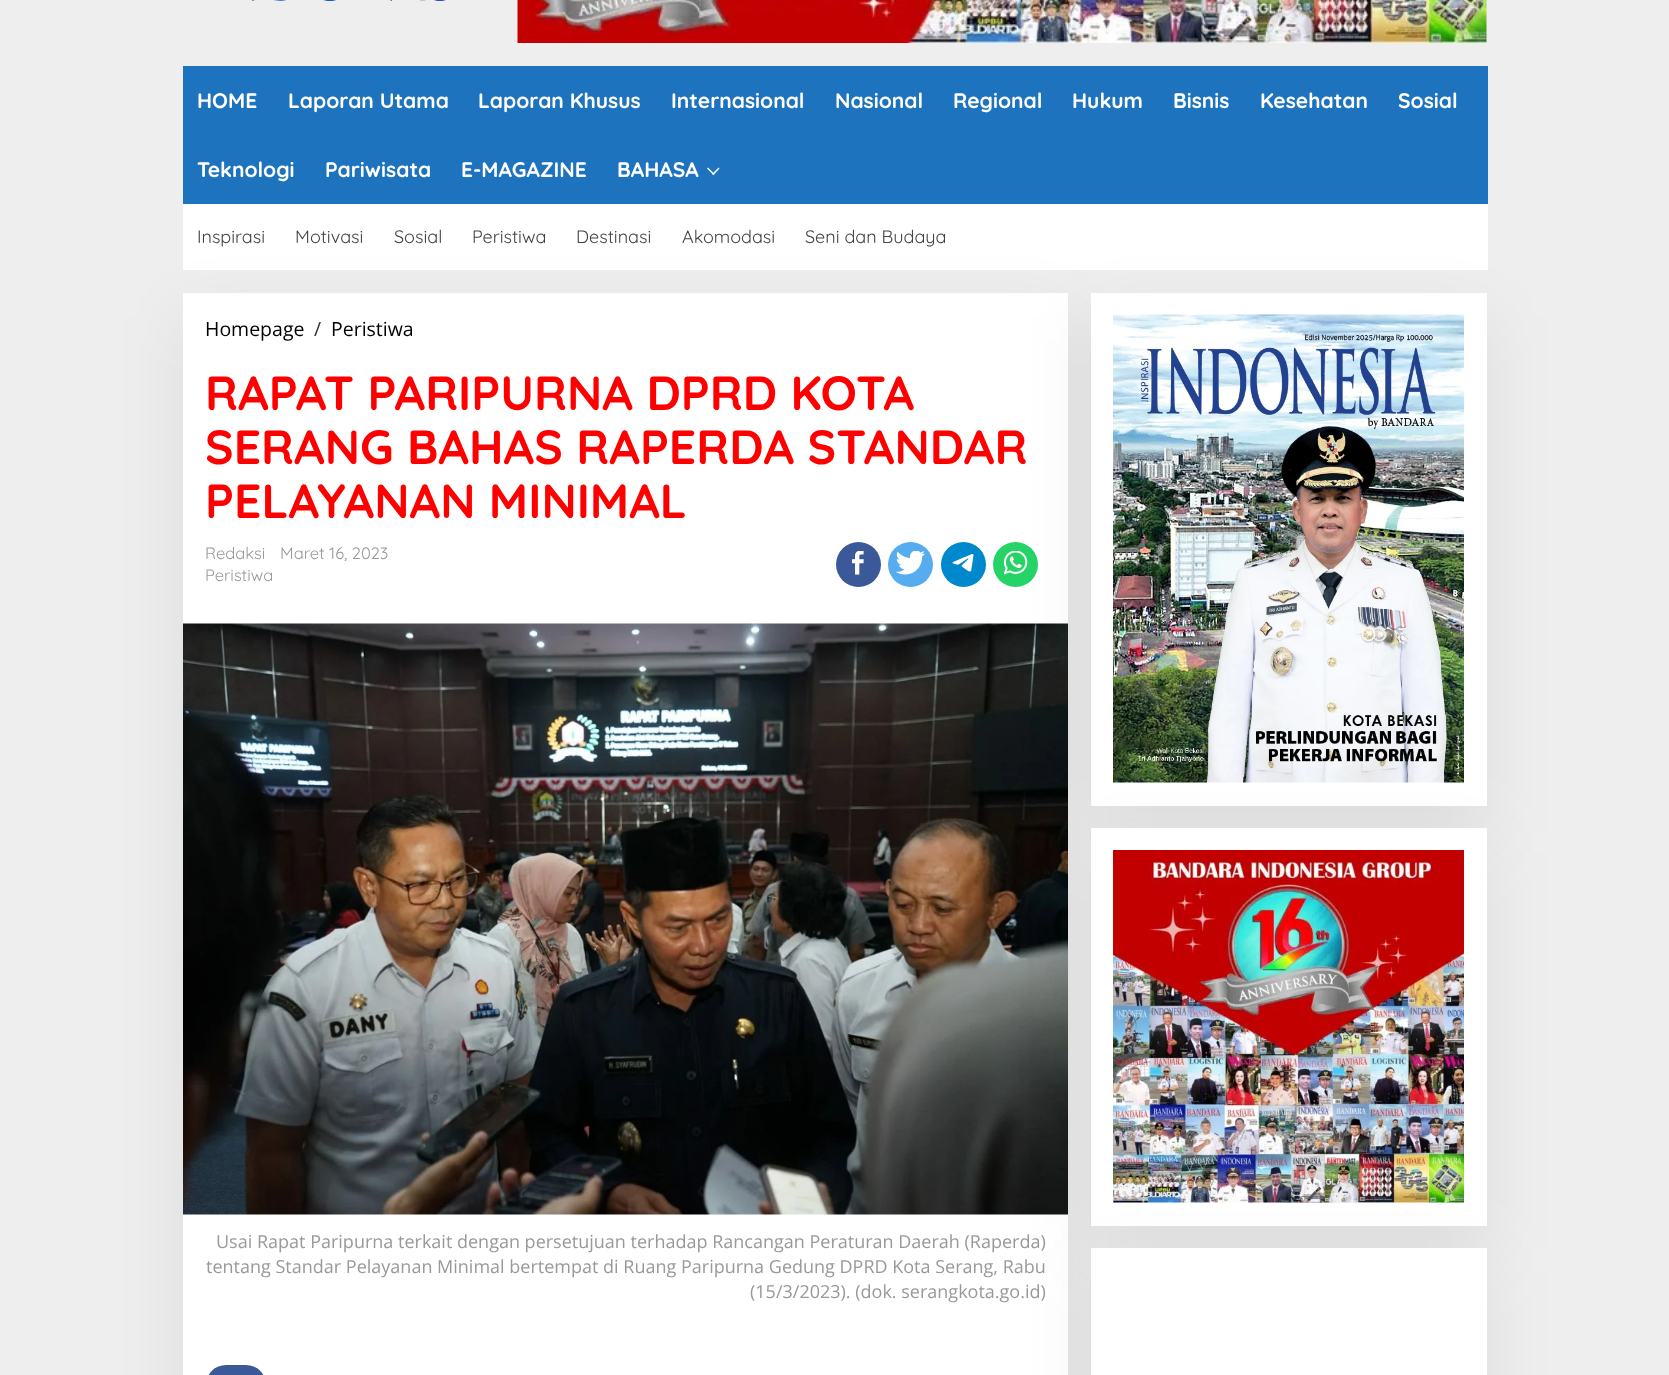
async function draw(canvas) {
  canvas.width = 1669;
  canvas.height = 1375;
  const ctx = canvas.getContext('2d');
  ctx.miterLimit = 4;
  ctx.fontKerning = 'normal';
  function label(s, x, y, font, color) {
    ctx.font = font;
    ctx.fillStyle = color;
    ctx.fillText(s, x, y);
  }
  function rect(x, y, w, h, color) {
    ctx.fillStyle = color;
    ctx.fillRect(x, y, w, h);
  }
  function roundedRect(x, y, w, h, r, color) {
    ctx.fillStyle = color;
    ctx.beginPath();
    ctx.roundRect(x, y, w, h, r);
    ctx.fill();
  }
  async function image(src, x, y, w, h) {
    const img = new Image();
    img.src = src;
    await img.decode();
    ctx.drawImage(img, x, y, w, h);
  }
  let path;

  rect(0, 0, 1669, 1375, '#eee');
  await image('assets/img1.png', 251, 0, 195, 1);
  await image('assets/img2.png', 517, 0, 970, 43);
  rect(183, 66, 1305, 138, '#1e73be');
  label('HOME', 197, 108, 'bold 21px Quicksand', '#fff');
  label('Laporan Utama', 288, 108, 'bold 21px Quicksand', '#fff');
  label('Laporan Khusus', 478, 108, 'bold 21px Quicksand', '#fff');
  label('Internasional', 671, 108, 'bold 21px Quicksand', '#fff');
  label('Nasional', 835, 108, 'bold 21px Quicksand', '#fff');
  label('Regional', 953, 108, 'bold 21px Quicksand', '#fff');
  label('Hukum', 1072, 108, 'bold 21px Quicksand', '#fff');
  label('Bisnis', 1173, 108, 'bold 21px Quicksand', '#fff');
  label('Kesehatan', 1260, 108, 'bold 21px Quicksand', '#fff');
  label('Sosial', 1398, 108, 'bold 21px Quicksand', '#fff');
  label('Teknologi', 197, 177, 'bold 21px Quicksand', '#fff');
  label('Pariwisata', 325, 177, 'bold 21px Quicksand', '#fff');
  label('E-MAGAZINE', 461, 177, 'bold 21px Quicksand', '#fff');
  label('BAHASA', 617, 177, 'bold 21px Quicksand', '#fff');
  path = new Path2D('M718.5 167.5L719.5 168.5L713.5 175L712 174Z');
  ctx.fill(path);
  path = new Path2D('M708 167.5L714.5 174L713.5 175L707 168.5Z');
  ctx.fill(path);
  rect(183, 204, 1305, 66, '#fff');
  label('Inspirasi', 197, 243, '18px Quicksand', '#444');
  label('Motivasi', 295, 243, '18px Quicksand', '#444');
  label('Sosial', 394, 243, '18px Quicksand', '#444');
  label('Peristiwa', 472, 243, '18px Quicksand', '#444');
  label('Destinasi', 576, 243, '18px Quicksand', '#444');
  label('Akomodasi', 682, 243, '18px Quicksand', '#444');
  label('Seni dan Budaya', 805, 243, '18px Quicksand', '#444');
  ctx.fillStyle = '#00000012';
  ctx.filter = 'blur(34px)';
  ctx.beginPath();
  ctx.rect(183, 317, 885, 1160);
  ctx.fill();
  ctx.filter = 'none';
  rect(183, 293, 885, 1082, '#fff');
  label('Homepage', 205, 336, '19.5px Open Sans', '#000');
  label('/', 314, 336, '19.5px Open Sans', '#323233');
  label('Peristiwa', 331, 336, '19.5px Open Sans', '#000');
  label('RAPAT PARIPURNA DPRD KOTA', 205, 410, 'bold 48px Quicksand', '#f00');
  label('SERANG BAHAS RAPERDA STANDAR', 205, 464, 'bold 48px Quicksand', '#f00');
  label('PELAYANAN MINIMAL', 205, 518, 'bold 48px Quicksand', '#f00');
  label('Redaksi', 205, 559, '16.5px Quicksand', '#999');
  label('Maret 16, 2023', 280, 559, '16.5px Quicksand', '#999');
  label('Peristiwa', 205, 581, '16.5px Quicksand', '#999');
  ctx.fillStyle = '#3b5998';
  ctx.beginPath();
  ctx.arc(858.5, 564.5, 22.5, 0, 2 * Math.PI);
  ctx.fill();
  await image('assets/img3.png', 852, 551, 12, 24);
  ctx.fillStyle = '#55acee';
  ctx.beginPath();
  ctx.arc(910.5, 564.5, 22.5, 0, 2 * Math.PI);
  ctx.fill();
  await image('assets/img4.png', 896, 551, 29, 24);
  ctx.fillStyle = '#08c';
  ctx.beginPath();
  ctx.arc(963.5, 564.5, 22.5, 0, 2 * Math.PI);
  ctx.fill();
  await image('assets/img5.png', 952, 554, 22, 18);
  ctx.fillStyle = '#25d366';
  ctx.beginPath();
  ctx.arc(1015.5, 564.5, 22.5, 0, 2 * Math.PI);
  ctx.fill();
  await image('assets/img6.png', 1004, 551, 24, 24);
  await image('assets/img7.png', 183, 623, 885, 592);
  label('Usai Rapat Paripurna terkait dengan persetujuan terhadap Rancangan Peraturan Daerah (Raperda)', 216, 1248, '18px Open Sans', '#999');
  label('tentang Standar Pelayanan Minimal bertempat di Ruang Paripurna Gedung DPRD Kota Serang, Rabu', 206, 1273, '18px Open Sans', '#999');
  label('(15/3/2023). (dok. serangkota.go.id)', 750, 1298, '18px Open Sans', '#999');
  roundedRect(206, 1365, 60, 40, 30, '#3b5998');
  ctx.fillStyle = '#00000012';
  ctx.filter = 'blur(34px)';
  ctx.beginPath();
  ctx.rect(1091, 317, 396, 513);
  ctx.fill();
  ctx.filter = 'none';
  rect(1091, 293, 396, 513, '#fff');
  ctx.fillStyle = '#00000012';
  ctx.filter = 'blur(34px)';
  ctx.beginPath();
  ctx.rect(1091, 852, 396, 398);
  ctx.fill();
  ctx.filter = 'none';
  await image('assets/img8.png', 1113, 314, 351, 469);
  rect(1091, 828, 396, 398, '#fff');
  ctx.fillStyle = '#00000012';
  ctx.filter = 'blur(34px)';
  ctx.beginPath();
  ctx.rect(1091, 1272, 396, 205);
  ctx.fill();
  ctx.filter = 'none';
  await image('assets/img9.png', 1113, 850, 351, 353);
  rect(1091, 1248, 396, 127, '#fff');
}

draw(document.querySelector('canvas'));
